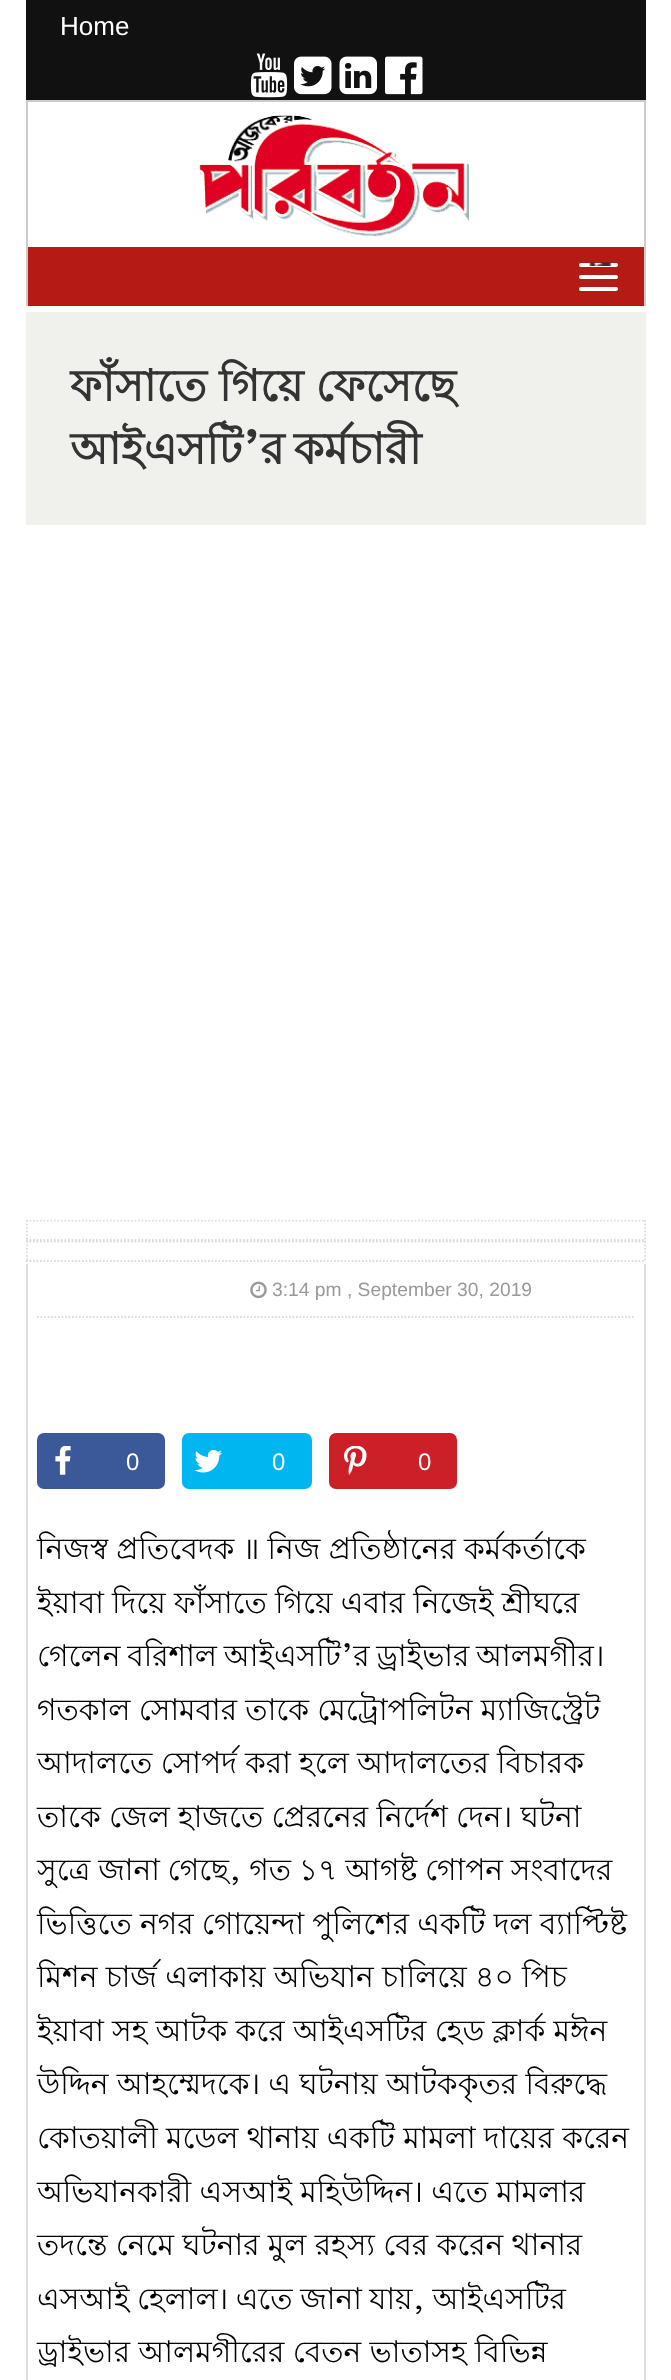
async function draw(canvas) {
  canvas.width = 671;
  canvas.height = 2380;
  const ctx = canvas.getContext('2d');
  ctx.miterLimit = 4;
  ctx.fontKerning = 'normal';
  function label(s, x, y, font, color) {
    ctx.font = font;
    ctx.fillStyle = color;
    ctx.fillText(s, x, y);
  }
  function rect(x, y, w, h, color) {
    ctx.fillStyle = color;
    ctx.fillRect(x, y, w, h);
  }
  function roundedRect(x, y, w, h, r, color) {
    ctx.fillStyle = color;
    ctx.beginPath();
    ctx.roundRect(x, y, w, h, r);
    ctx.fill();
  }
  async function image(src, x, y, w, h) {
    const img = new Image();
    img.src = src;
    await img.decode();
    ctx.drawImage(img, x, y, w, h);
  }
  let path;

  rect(0, 0, 671, 2380, '#fff');
  rect(26, 0, 620, 100, '#111');
  label('Home', 60, 35, '26px Liberation Sans', '#fff');
  await image('assets/img1.png', 250, 53, 38, 45);
  await image('assets/img2.png', 294, 56, 38, 39);
  await image('assets/img3.png', 339, 56, 38, 39);
  await image('assets/img4.png', 385, 56, 38, 39);
  rect(26, 100, 620, 2, '#ccc');
  rect(644, 100, 2, 206, '#ccc');
  rect(26, 100, 2, 206, '#ccc');
  await image('assets/img5.png', 199, 115, 271, 122);
  rect(28, 247, 616, 59, '#b51b14');
  roundedRect(579, 263, 39, 4, 2, '#fff');
  await image('assets/img6.png', 589, 262, 23, 4);
  roundedRect(579, 275, 39, 4, 2, '#fff');
  await image('assets/img7.png', 594, 274, 13, 2);
  roundedRect(579, 287, 39, 4, 2, '#fff');
  rect(26, 312, 620, 213, '#f0f0ed');
  label('ফাঁসাতে গিয়ে ফেসেছে', 70, 401, 'bold 43.75px Lohit Bengali', '#333');
  ctx.wordSpacing = '-3px';
  label('আইএসটি’র কর্মচারী', 70, 464, 'bold 43.75px Lohit Bengali', '#333');
  ctx.save();
  ctx.beginPath();
  ctx.rect(0, 1220, 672, 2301);
  ctx.clip();
  path = new Path2D('M26 1220.5H646');
  ctx.strokeStyle = '#ddd';
  ctx.lineWidth = 1.8;
  ctx.setLineDash([1.75, 1.75]);
  ctx.stroke(path);
  ctx.restore();
  path = new Path2D('M645 1220V1241');
  ctx.strokeStyle = '#ddd';
  ctx.lineWidth = 1.8;
  ctx.setLineDash([1.75, 1.75]);
  ctx.stroke(path);
  path = new Path2D('M26 1240H646');
  ctx.stroke(path);
  path = new Path2D('M27 1220V1241');
  ctx.stroke(path);
  path = new Path2D('M26 1241.5H646');
  ctx.stroke(path);
  path = new Path2D('M645 1241V1262');
  ctx.stroke(path);
  path = new Path2D('M26 1261H646');
  ctx.stroke(path);
  path = new Path2D('M27 1241V1262');
  ctx.stroke(path);
  rect(644, 1264, 2, 1116, '#ddd');
  rect(26, 1264, 2, 1116, '#ddd');
  path = new Path2D('M37 1317H635');
  ctx.stroke(path);
  await image('assets/img8.png', 250, 1281, 17, 18);
  ctx.wordSpacing = '0px';
  label('3:14 pm , September 30, 2019', 272, 1296, '19.25px Liberation Sans', '#999');
  roundedRect(37, 1433, 128, 56, 7, '#3b5998');
  await image('assets/img9.png', 55, 1446, 16, 29);
  label('0', 126, 1470, '24px Liberation Sans', '#fff');
  roundedRect(182, 1433, 130, 56, 7, '#00b6f1');
  await image('assets/img10.png', 194, 1450, 28, 23);
  label('0', 272, 1470, '24px Liberation Sans', '#fff');
  roundedRect(329, 1433, 128, 56, 7, '#cb2027');
  await image('assets/img11.png', 344, 1446, 23, 29);
  label('0', 418, 1470, '24px Liberation Sans', '#fff');
  label('নিজস্ব প্রতিবেদক ॥ নিজ প্রতিষ্ঠানের কর্মকর্তাকে', 37, 1559, '29.75px Lohit Bengali', '#020202');
  label('ইয়াবা দিয়ে ফাঁসাতে গিয়ে এবার নিজেই শ্রীঘরে', 37, 1613, '29.75px Lohit Bengali', '#020202');
  ctx.wordSpacing = '-1.5px';
  label('গেলেন বরিশাল আইএসটি’র ড্রাইভার আলমগীর।', 37, 1666, '29.75px Lohit Bengali', '#020202');
  ctx.wordSpacing = '0px';
  label('গতকাল সোমবার তাকে মেট্রোপলিটন ম্যাজিস্ট্রেট', 37, 1720, '29.75px Lohit Bengali', '#020202');
  label('আদালতে সোপর্দ করা হলে আদালতের বিচারক', 37, 1773, '29.75px Lohit Bengali', '#020202');
  label('তাকে জেল হাজতে প্রেরনের নির্দেশ দেন। ঘটনা', 37, 1827, '29.75px Lohit Bengali', '#020202');
  ctx.wordSpacing = '-0.5px';
  label('সুত্রে জানা গেছে, গত ১৭ আগষ্ট গোপন সংবাদের', 37, 1880, '29.75px Lohit Bengali', '#020202');
  ctx.wordSpacing = '0px';
  label('ভিত্তিতে নগর গোয়েন্দা পুলিশের একটি দল ব্যাপ্টিষ্ট', 37, 1934, '29.75px Lohit Bengali', '#020202');
  label('মিশন চার্জ এলাকায় অভিযান চালিয়ে ৪০ পিচ', 37, 1987, '29.75px Lohit Bengali', '#020202');
  label('ইয়াবা সহ আটক করে আইএসটির হেড ক্লার্ক মঈন', 37, 2041, '29.75px Lohit Bengali', '#020202');
  label('উদ্দিন আহম্মেদকে। এ ঘটনায় আটককৃতর বিরুদ্ধে', 37, 2094, '29.75px Lohit Bengali', '#020202');
  label('কোতয়ালী মডেল থানায় একটি মামলা দায়ের করেন', 37, 2148, '29.75px Lohit Bengali', '#020202');
  label('অভিযানকারী এসআই মহিউদ্দিন। এতে মামলার', 37, 2202, '29.75px Lohit Bengali', '#020202');
  label('তদন্তে নেমে ঘটনার মুল রহস্য বের করেন থানার', 37, 2255, '29.75px Lohit Bengali', '#020202');
  ctx.wordSpacing = '-0.75px';
  label('এসআই হেলাল। এতে জানা যায়, আইএসটির', 37, 2309, '29.75px Lohit Bengali', '#020202');
  ctx.wordSpacing = '0px';
  label('ড্রাইভার আলমগীরের বেতন ভাতাসহ বিভিন্ন', 37, 2362, '29.75px Lohit Bengali', '#020202');
}

draw(document.querySelector('canvas'));
